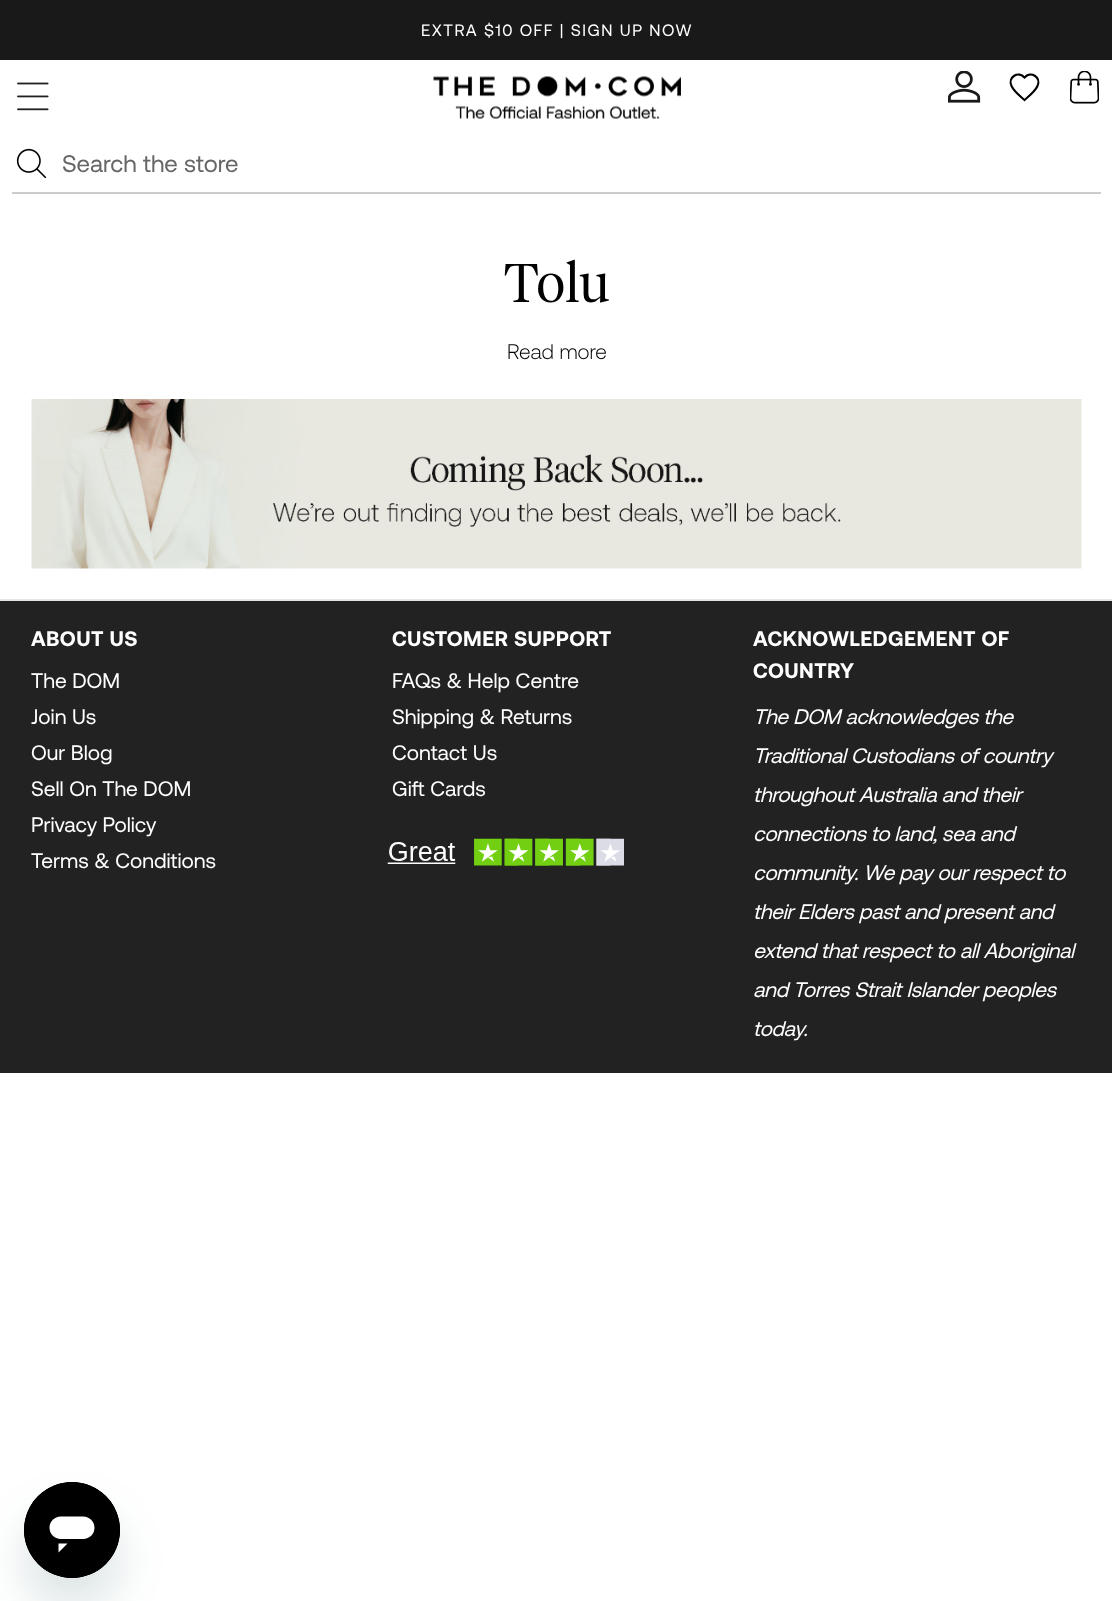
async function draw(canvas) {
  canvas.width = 1112;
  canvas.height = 1601;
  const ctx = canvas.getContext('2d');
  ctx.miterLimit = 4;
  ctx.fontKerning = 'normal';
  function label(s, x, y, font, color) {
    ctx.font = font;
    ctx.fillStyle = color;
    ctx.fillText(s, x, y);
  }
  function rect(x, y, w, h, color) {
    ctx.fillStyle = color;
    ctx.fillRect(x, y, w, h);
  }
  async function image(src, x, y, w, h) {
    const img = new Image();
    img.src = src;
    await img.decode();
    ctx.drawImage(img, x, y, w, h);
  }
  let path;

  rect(0, 0, 1112, 1601, '#fff');
  rect(0, 0, 1112, 60, '#191919');
  ctx.letterSpacing = '1.5px';
  label('EXTRA $10 OFF | SIGN UP NOW', 421, 36, '16.5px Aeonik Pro', '#fff');
  await image('assets/img1.png', 17, 82, 32, 29);
  await image('assets/img2.png', 433, 76, 248, 43);
  await image('assets/img3.png', 948, 71, 33, 32);
  path = new Path2D('M1024.5 100C1020 96 1014 91.5 1011.5 86C1007.5 77 1018.5 70.5 1024.5 77.5C1030.5 70.5 1041.5 77 1037.5 86C1035 91.5 1029 96 1024.5 100Z');
  ctx.strokeStyle = '#000';
  ctx.lineWidth = 2.1;
  ctx.stroke(path);
  await image('assets/img4.png', 1070, 71, 29, 33);
  await image('assets/img5.png', 16, 148, 31, 31);
  rect(12, 192, 1089, 2, '#ccc');
  ctx.letterSpacing = '0px';
  label('Search the store', 62, 172, '24px Aeonik Pro', '#666');
  ctx.letterSpacing = '0.4px';
  label('Tolu', 504, 302, '300 54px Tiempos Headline', '#000');
  ctx.letterSpacing = '0px';
  label('Read more', 507, 359, '300 21px Aeonik Pro', '#000');
  await image('assets/img6.png', 31, 399, 1051, 170);
  rect(0, 601, 1112, 472, '#222');
  rect(0, 599, 1112, 2, '#e5e5e5');
  ctx.letterSpacing = '0.4px';
  label('ABOUT US', 31, 646, 'bold 21px Aeonik Pro', '#fff');
  ctx.letterSpacing = '0px';
  label('The DOM', 31, 688, '21px Aeonik Pro', '#fff');
  label('Join Us', 31, 724, '21px Aeonik Pro', '#fff');
  label('Our Blog', 31, 760, '21px Aeonik Pro', '#fff');
  label('Sell On The DOM', 31, 796, '21px Aeonik Pro', '#fff');
  label('Privacy Policy', 31, 832, '21px Aeonik Pro', '#fff');
  label('Terms & Conditions', 31, 868, '21px Aeonik Pro', '#fff');
  ctx.letterSpacing = '0.4px';
  label('CUSTOMER SUPPORT', 392, 646, 'bold 21px Aeonik Pro', '#fff');
  ctx.letterSpacing = '0px';
  label('FAQs & Help Centre', 392, 688, '21px Aeonik Pro', '#fff');
  label('Shipping & Returns', 392, 724, '21px Aeonik Pro', '#fff');
  label('Contact Us', 392, 760, '21px Aeonik Pro', '#fff');
  label('Gift Cards', 392, 796, '21px Aeonik Pro', '#fff');
  await image('assets/img7.png', 387, 838, 237, 28);
  ctx.letterSpacing = '0.4px';
  label('ACKNOWLEDGEMENT OF', 753, 646, 'bold 21px Aeonik Pro', '#fff');
  label('COUNTRY', 753, 678, 'bold 21px Aeonik Pro', '#fff');
  ctx.letterSpacing = '-0.3px';
  label('The DOM acknowledges the', 753, 724, 'italic 21px Aeonik Pro', '#fff');
  label('Traditional Custodians of country', 753, 763, 'italic 21px Aeonik Pro', '#fff');
  label('throughout Australia and their', 753, 802, 'italic 21px Aeonik Pro', '#fff');
  label('connections to land, sea and', 753, 841, 'italic 21px Aeonik Pro', '#fff');
  label('community. We pay our respect to', 753, 880, 'italic 21px Aeonik Pro', '#fff');
  label('their Elders past and present and', 753, 919, 'italic 21px Aeonik Pro', '#fff');
  label('extend that respect to all Aboriginal', 753, 958, 'italic 21px Aeonik Pro', '#fff');
  label('and Torres Strait Islander peoples', 753, 997, 'italic 21px Aeonik Pro', '#fff');
  label('today.', 753, 1036, 'italic 21px Aeonik Pro', '#fff');
  ctx.fillStyle = '#17494d26';
  ctx.filter = 'blur(22.5px)';
  ctx.beginPath();
  ctx.roundRect(24, 1512, 96, 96, 48);
  ctx.fill();
  ctx.filter = 'none';
  await image('assets/img8.png', 24, 1482, 96, 96);
}

draw(document.querySelector('canvas'));
